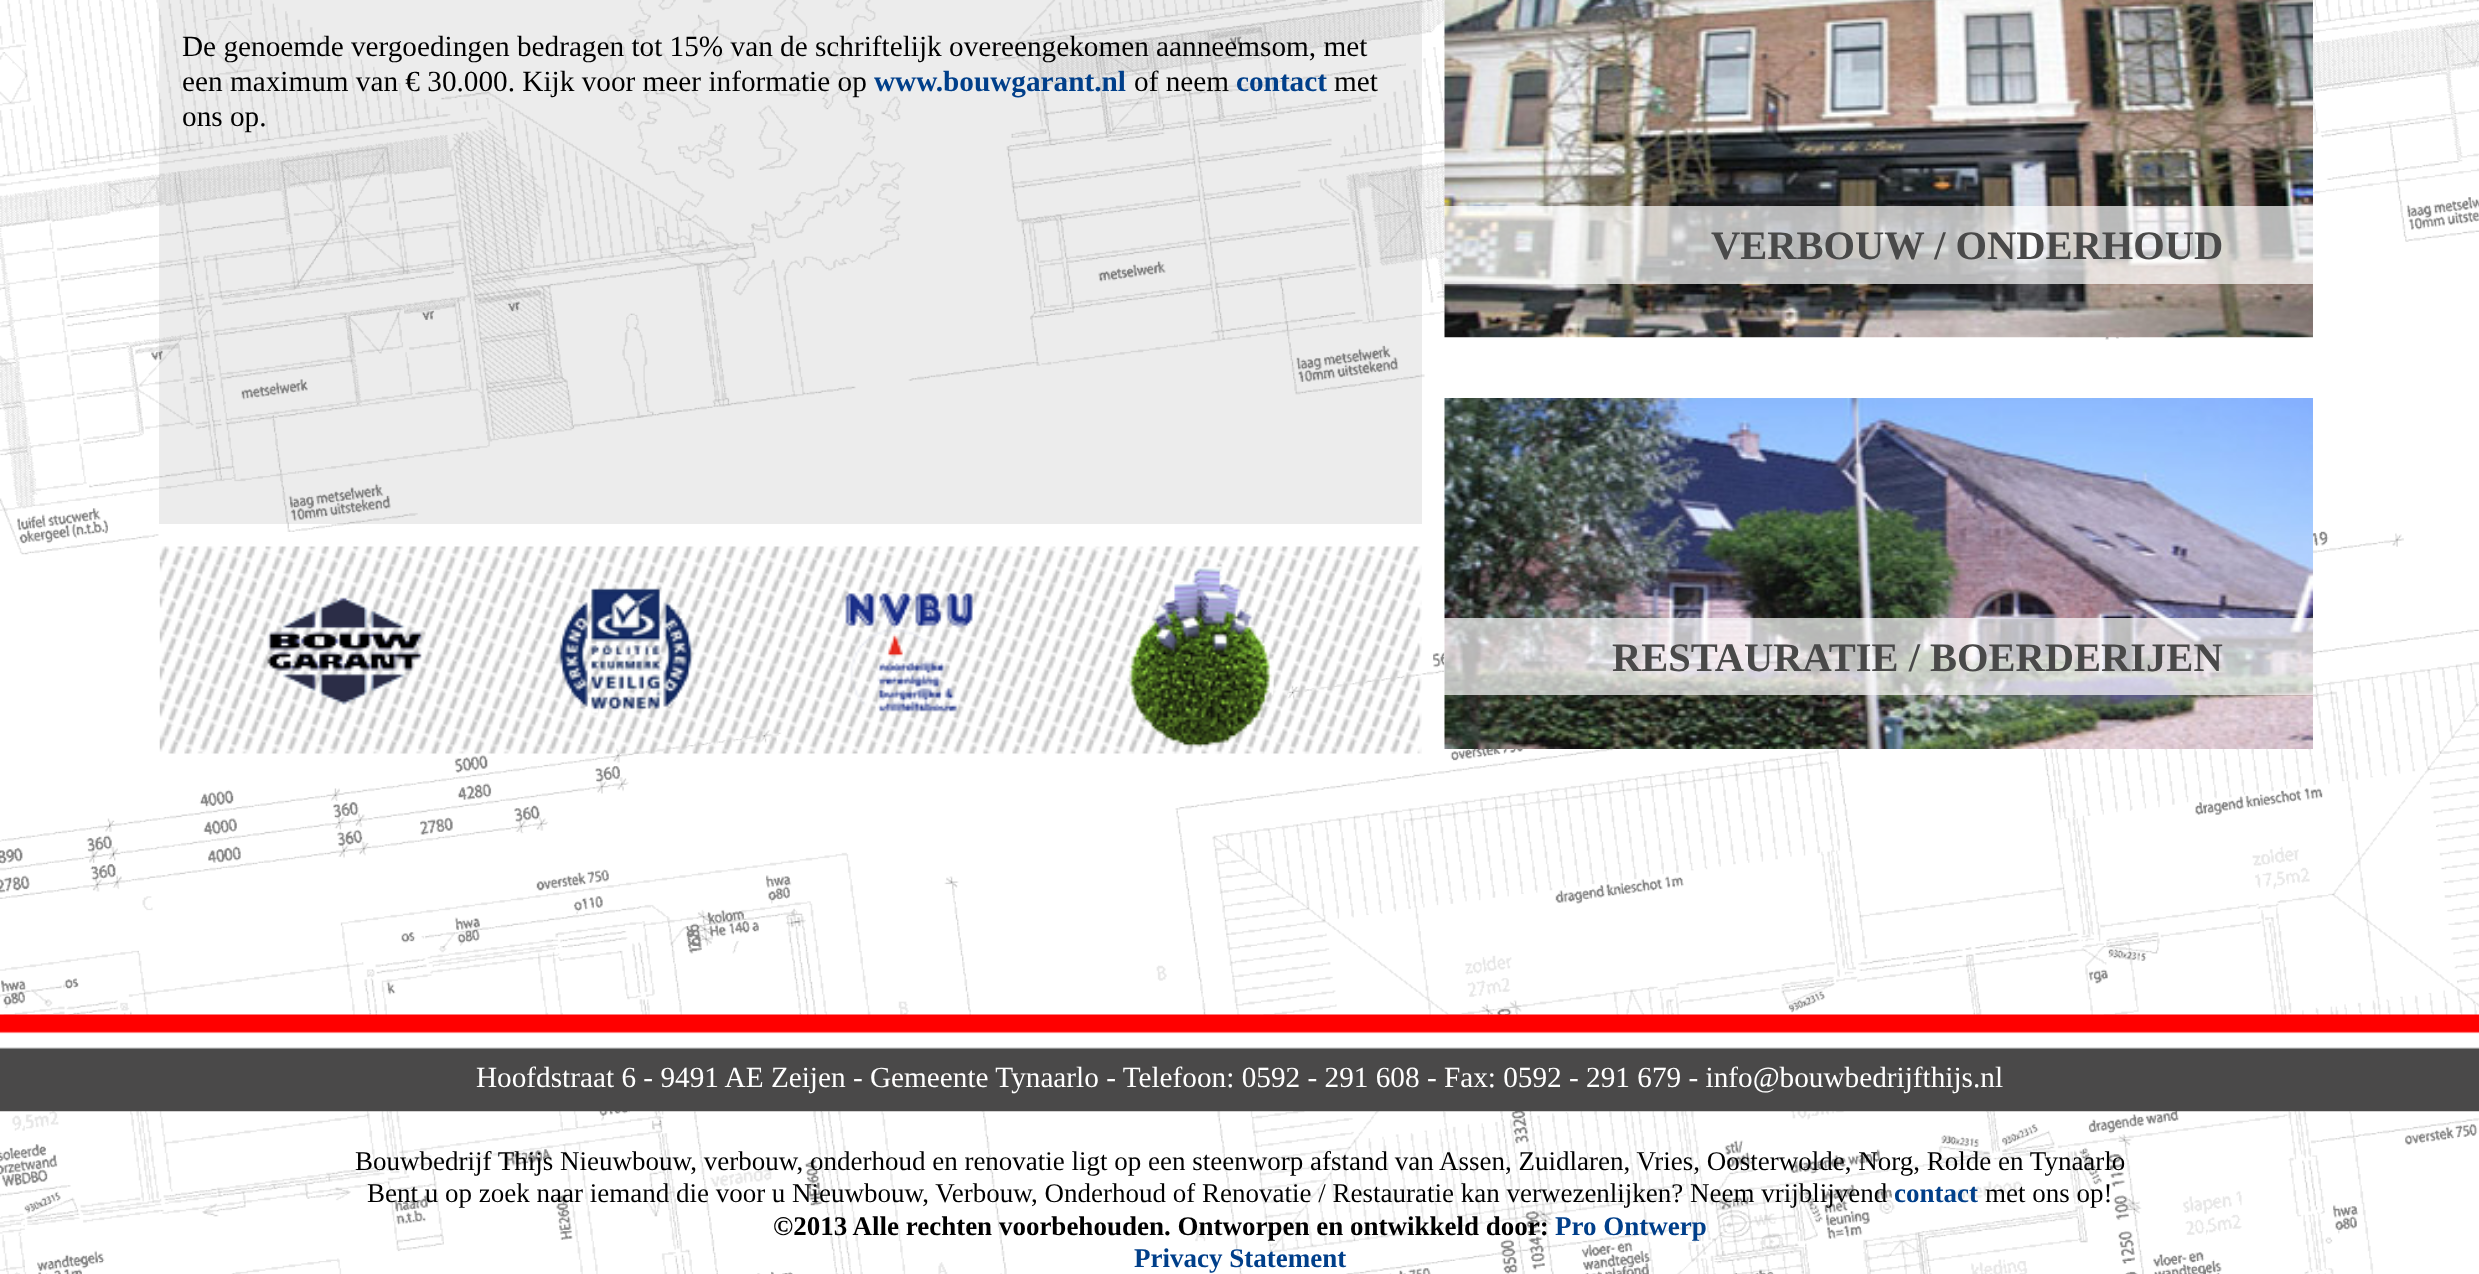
async function draw(canvas) {
  canvas.width = 2479;
  canvas.height = 1274;
  const ctx = canvas.getContext('2d');
  ctx.miterLimit = 4;
  ctx.fontKerning = 'normal';
  function label(s, x, y, font, color) {
    ctx.font = font;
    ctx.fillStyle = color;
    ctx.fillText(s, x, y);
  }
  function rect(x, y, w, h, color) {
    ctx.fillStyle = color;
    ctx.fillRect(x, y, w, h);
  }
  async function image(src, x, y, w, h) {
    const img = new Image();
    img.src = src;
    await img.decode();
    ctx.drawImage(img, x, y, w, h);
  }

  rect(0, 0, 2479, 1274, '#fff');
  await image('assets/img1.png', 0, 0, 2479, 1274);
  rect(159, 0, 1263, 524, '#4545451a');
  label('De genoemde vergoedingen bedragen tot 15% van de schriftelijk overeengekomen aanneemsom, met', 182, 56, '29.25px Liberation Serif', '#000');
  label('een maximum van € 30.000. Kijk voor meer informatie op', 182, 91, '29.25px Liberation Serif', '#000');
  label('www.bouwgarant.nl', 874, 91, 'bold 29.25px Liberation Serif', '#003f8a');
  label('of neem', 1134, 91, '29.25px Liberation Serif', '#000');
  label('contact', 1236, 91, 'bold 29.25px Liberation Serif', '#003f8a');
  label('met', 1334, 91, '29.25px Liberation Serif', '#000');
  label('ons op.', 182, 126, '29.25px Liberation Serif', '#000');
  await image('assets/img2.png', 159, 546, 1263, 208);
  await image('assets/img3.png', 267, 597, 155, 108);
  await image('assets/img4.png', 559, 588, 133, 126);
  await image('assets/img5.png', 845, 593, 128, 119);
  await image('assets/img6.png', 1126, 566, 148, 182);
  await image('assets/img7.png', 1444, 0, 869, 338);
  rect(1444, 206, 869, 78, '#ffffffb3');
  label('VERBOUW / ONDERHOUD', 1711, 259, 'bold 40.5px Liberation Serif', '#494949');
  await image('assets/img8.png', 1444, 398, 869, 351);
  rect(1444, 618, 869, 77, '#ffffffb3');
  label('RESTAURATIE / BOERDERIJEN', 1612, 671, 'bold 40.5px Liberation Serif', '#494949');
  await image('assets/img9.png', 0, 1014, 2479, 98);
  label('Hoofdstraat 6 - 9491 AE Zeijen - Gemeente Tynaarlo - Telefoon: 0592 - 291 608 - Fax: 0592 - 291 679 - info@bouwbedrijfthijs.nl', 476, 1087, '29.25px Liberation Serif', '#fff');
  label('Bouwbedrijf Thijs Nieuwbouw, verbouw, onderhoud en renovatie ligt op een steenworp afstand van Assen, Zuidlaren, Vries, Oosterwolde, Norg, Rolde en Tynaarlo', 355, 1170, '27px Liberation Serif', '#000');
  label('Bent u op zoek naar iemand die voor u Nieuwbouw, Verbouw, Onderhoud of Renovatie / Restauratie kan verwezenlijken? Neem vrijblijvend', 367, 1202, '27px Liberation Serif', '#000');
  label('contact', 1894, 1202, 'bold 27px Liberation Serif', '#003f8a');
  label('met ons op!', 1985, 1202, '27px Liberation Serif', '#000');
  label('©2013 Alle rechten voorbehouden. Ontworpen en ontwikkeld door:', 773, 1235, 'bold 27px Liberation Serif', '#000');
  label('Pro Ontwerp', 1555, 1235, 'bold 27px Liberation Serif', '#003f8a');
  label('Privacy Statement', 1134, 1267, 'bold 27px Liberation Serif', '#003f8a');
}

draw(document.querySelector('canvas'));
